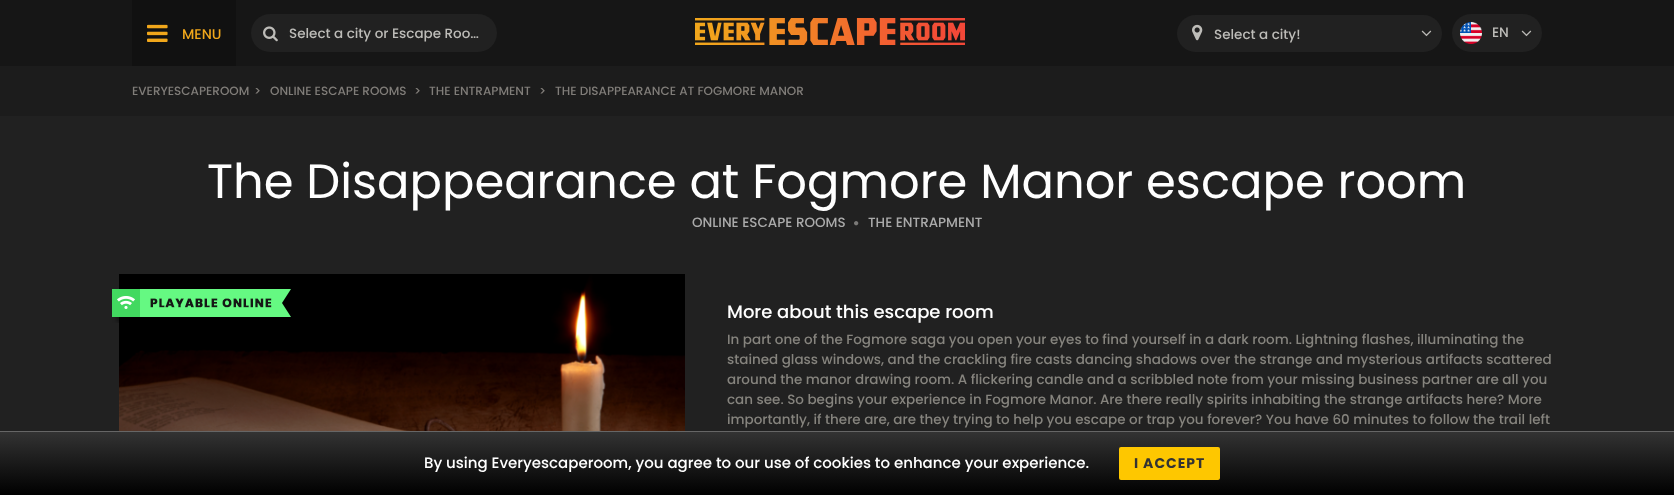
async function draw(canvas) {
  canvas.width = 1674;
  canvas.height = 495;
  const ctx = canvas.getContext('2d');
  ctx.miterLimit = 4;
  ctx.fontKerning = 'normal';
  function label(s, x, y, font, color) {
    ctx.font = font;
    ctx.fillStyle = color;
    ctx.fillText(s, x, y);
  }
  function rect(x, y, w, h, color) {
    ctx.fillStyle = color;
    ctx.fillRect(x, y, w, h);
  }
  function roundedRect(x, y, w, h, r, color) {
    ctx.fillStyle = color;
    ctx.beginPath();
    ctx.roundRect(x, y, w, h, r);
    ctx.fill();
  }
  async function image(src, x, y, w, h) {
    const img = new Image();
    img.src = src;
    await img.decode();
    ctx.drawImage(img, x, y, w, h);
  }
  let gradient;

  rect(0, 0, 1674, 495, '#1c1c1c');
  rect(0, 0, 1674, 66, '#161616');
  rect(132, 0, 104, 66, '#111');
  await image('assets/img1.png', 147, 24, 21, 18);
  label('MENU', 182, 39, '500 14px Poppins', '#f1a71b');
  roundedRect(251, 14, 246, 38, 19, '#212121');
  await image('assets/img2.png', 263, 26, 15, 16);
  label('Select a city or Escape Roo…', 289, 38, '500 13.5px Poppins', '#bdbcb8');
  await image('assets/img3.png', 695, 18, 270, 27);
  roundedRect(1177, 15, 265, 37, 18.5, '#212121');
  await image('assets/img4.png', 1192, 24, 11, 17);
  label('Select a city!', 1214, 39, '500 13.5px Poppins', '#bdbcb8');
  await image('assets/img5.png', 1421, 30, 11, 7);
  roundedRect(1452, 14, 90, 38, 19, '#212121');
  await image('assets/img6.png', 1460, 22, 22, 22);
  label('EN', 1492, 37, '500 13.5px Poppins', '#bdbcb8');
  await image('assets/img5.png', 1521, 30, 11, 7);
  label('EVERYESCAPEROOM', 132, 95, '500 12px Poppins', '#807d79');
  label('>', 254, 95, '500 12px Poppins', '#807d79');
  label('ONLINE ESCAPE ROOMS', 270, 95, '500 12px Poppins', '#807d79');
  label('>', 414, 95, '500 12px Poppins', '#807d79');
  label('THE ENTRAPMENT', 429, 95, '500 12px Poppins', '#807d79');
  label('>', 539, 95, '500 12px Poppins', '#807d79');
  label('THE DISAPPEARANCE AT FOGMORE MANOR', 555, 95, '500 12px Poppins', '#807d79');
  rect(0, 116, 1674, 315, '#212121');
  label('The Disappearance at Fogmore Manor escape room', 207, 198, '48px Poppins', '#fff');
  label('ONLINE ESCAPE ROOMS', 692, 227, '500 13.5px Poppins', '#aaa');
  await image('assets/img7.png', 854, 221, 5, 5);
  label('THE ENTRAPMENT', 868, 227, '500 13.5px Poppins', '#aaa');
  await image('assets/img8.png', 119, 274, 566, 157);
  await image('assets/img9.png', 112, 289, 179, 34);
  label('More about this escape room', 727, 318, '500 18px Poppins', '#fff');
  label('In part one of the Fogmore saga you open your eyes to find yourself in a dark room. Lightning flashes, illuminating the', 727, 344, '500 13.5px Poppins', '#86847e');
  label('stained glass windows, and the crackling fire casts dancing shadows over the strange and mysterious artifacts scattered', 727, 364, '500 13.5px Poppins', '#86847e');
  label('around the manor drawing room. A flickering candle and a scribbled note from your missing business partner are all you', 727, 384, '500 13.5px Poppins', '#86847e');
  label('can see. So begins your experience in Fogmore Manor. Are there really spirits inhabiting the strange artifacts here? More', 727, 404, '500 13.5px Poppins', '#86847e');
  label('importantly, if there are, are they trying to help you escape or trap you forever? You have 60 minutes to follow the trail left', 727, 424, '500 13.5px Poppins', '#86847e');
  gradient = ctx.createLinearGradient(837, 432, 837, 495);
  gradient.addColorStop(0, '#333');
  gradient.addColorStop(1, '#000');
  ctx.fillStyle = gradient;
  ctx.fillRect(0, 432, 1674, 63);
  rect(0, 431, 1674, 1, '#666');
  label('By using Everyescaperoom, you agree to our use of cookies to enhance your experience.', 424, 468, '500 15px Poppins', '#fff');
  roundedRect(1119, 447, 101, 33, 2, '#fec700');
  ctx.letterSpacing = '1px';
  label('I ACCEPT', 1134, 468, 'bold 14px Poppins', '#333');
}

draw(document.querySelector('canvas'));
